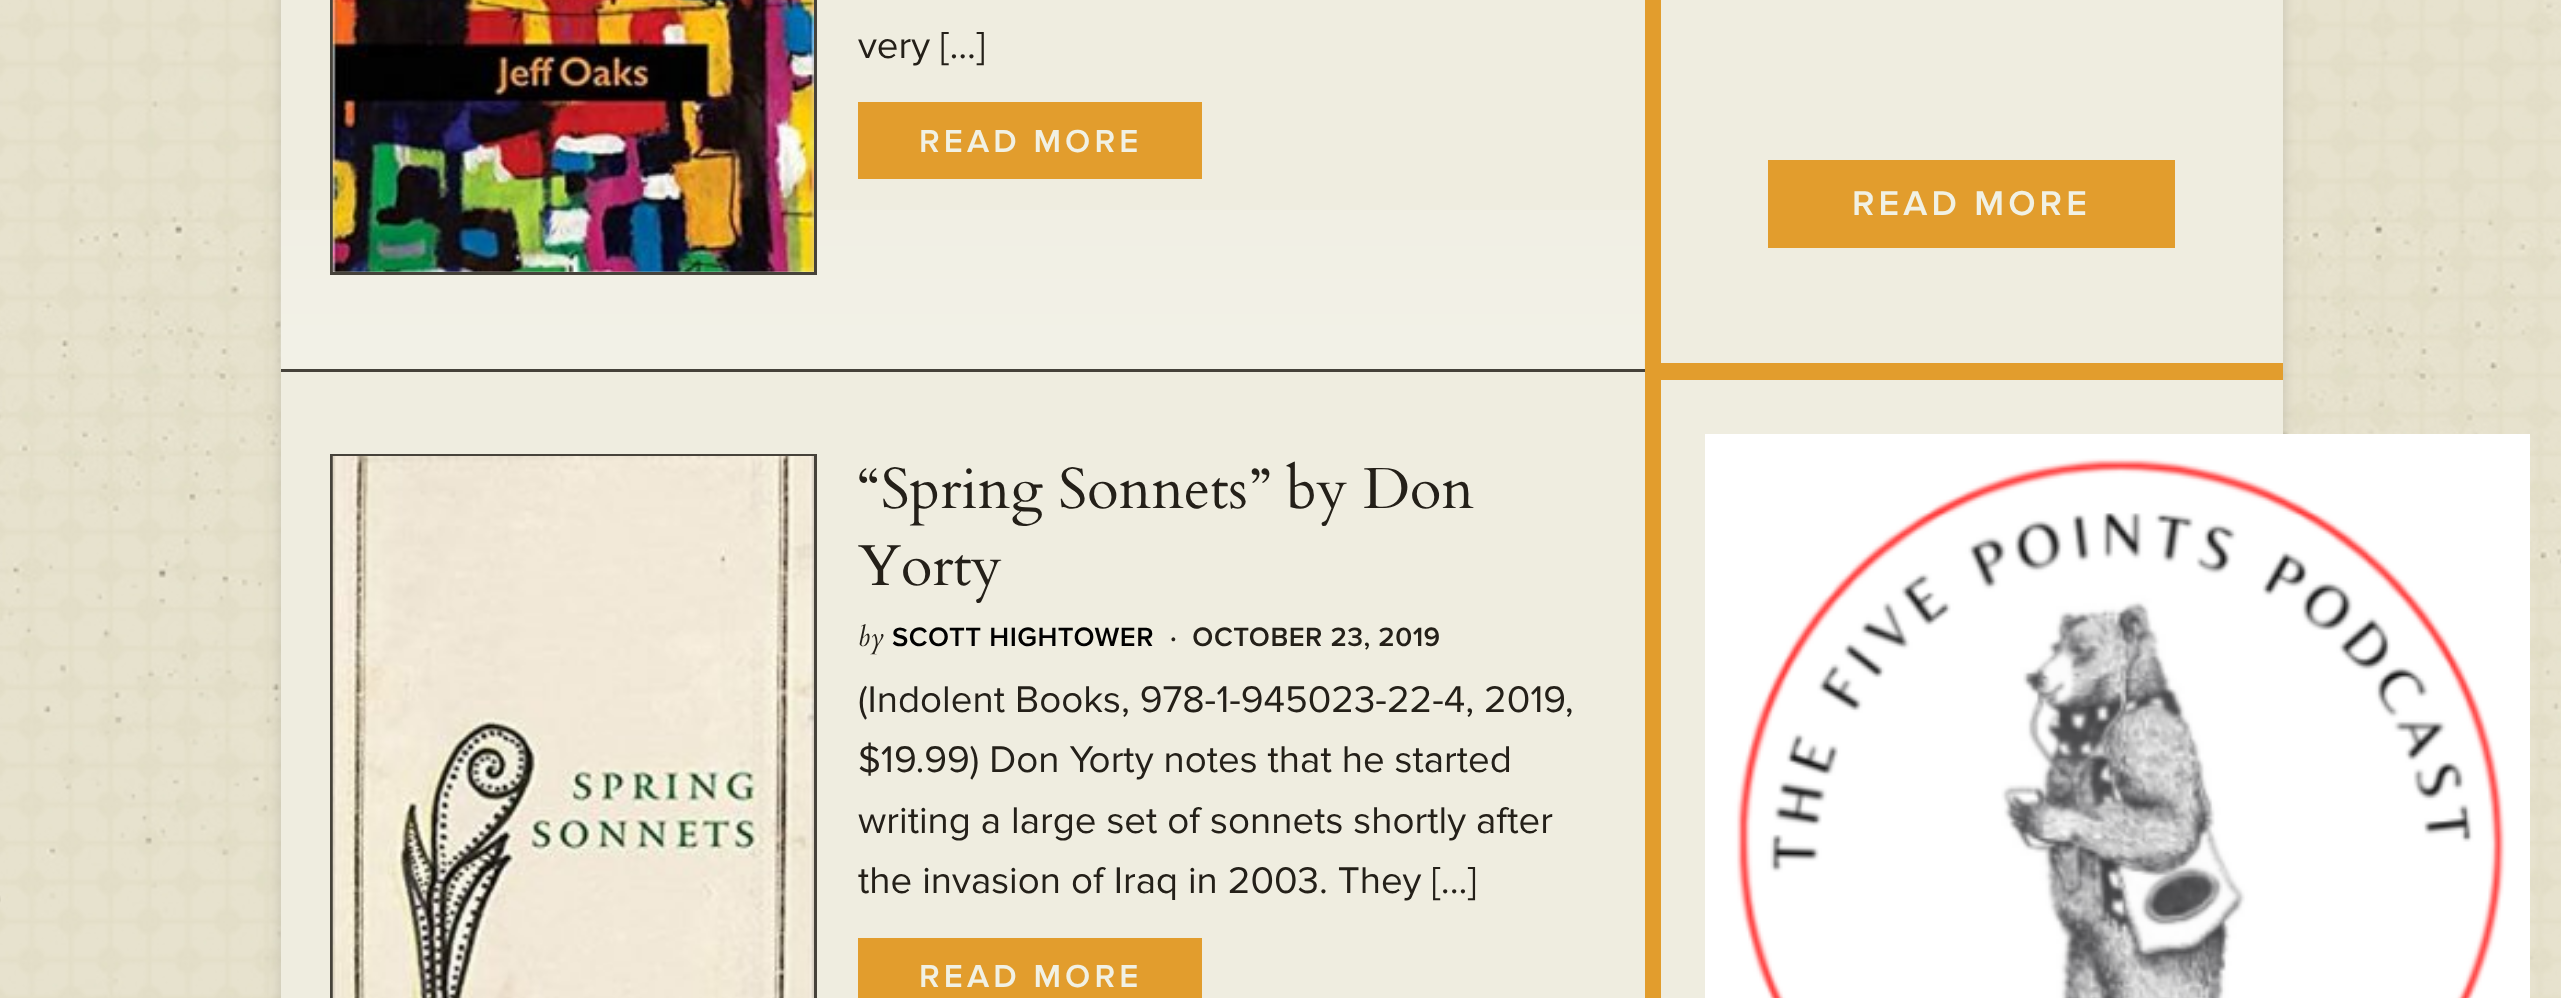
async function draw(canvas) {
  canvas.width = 2561;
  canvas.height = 998;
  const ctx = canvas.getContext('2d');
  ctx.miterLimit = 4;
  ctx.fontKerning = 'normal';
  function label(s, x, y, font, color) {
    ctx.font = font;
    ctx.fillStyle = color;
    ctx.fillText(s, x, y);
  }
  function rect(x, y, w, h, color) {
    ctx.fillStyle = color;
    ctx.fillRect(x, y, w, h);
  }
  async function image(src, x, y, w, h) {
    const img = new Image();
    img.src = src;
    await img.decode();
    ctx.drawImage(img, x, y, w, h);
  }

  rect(0, 0, 2561, 998, '#fff');
  await image('assets/img1.png', 0, 0, 2561, 998);
  ctx.fillStyle = '#00000026';
  ctx.filter = 'blur(7px)';
  ctx.beginPath();
  ctx.rect(281, -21, 2002, 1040);
  ctx.fill();
  ctx.filter = 'none';
  rect(281, 0, 2002, 998, '#efede0');
  rect(1645, 0, 16, 998, '#e29d2d');
  await image('assets/img2.png', 280, 210, 1364, 161);
  ctx.strokeStyle = '#46423a';
  ctx.lineWidth = 3;
  ctx.strokeRect(331.5, -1.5, 484, 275);
  await image('assets/img3.png', 332, 0, 482, 272);
  label('very [...]', 858, 58, '38.5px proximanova', '#242019');
  rect(858, 102, 344, 77, '#e29d2d');
  ctx.letterSpacing = '4.1px';
  label('READ MORE', 919, 152, '600 33px proximanova', '#f1f1e4');
  rect(281, 369, 1364, 3, '#46423a');
  ctx.strokeRect(331.5, 455.5, 484, 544);
  await image('assets/img4.png', 332, 456, 482, 542);
  ctx.letterSpacing = '0px';
  label('“Spring Sonnets” by Don', 858, 508, '57.75px Cardo', '#242019');
  label('Yorty', 858, 585, '57.75px Cardo', '#242019');
  ctx.letterSpacing = '0.5px';
  label('by', 858, 646, 'italic 27.5px Cardo', '#242019');
  label('SCOTT HIGHTOWER', 892, 646, '600 27.5px proximanova', '#000');
  label('·  OCTOBER 23, 2019', 1170, 646, '600 27.5px proximanova', '#242019');
  ctx.letterSpacing = '0px';
  label('(Indolent Books, 978-1-945023-22-4, 2019,', 858, 712, '38.5px proximanova', '#242019');
  label('$19.99) Don Yorty notes that he started', 858, 772, '38.5px proximanova', '#242019');
  label('writing a large set of sonnets shortly after', 858, 833, '38.5px proximanova', '#242019');
  label('the invasion of Iraq in 2003. They [...]', 858, 893, '38.5px proximanova', '#242019');
  rect(858, 938, 344, 60, '#e29d2d');
  ctx.letterSpacing = '4.1px';
  label('READ MORE', 919, 987, '600 33px proximanova', '#f1f1e4');
  rect(1661, 363, 622, 17, '#e29d2d');
  rect(1768, 160, 407, 88, '#e29d2d');
  label('READ MORE', 1852, 215, '600 35.75px proximanova', '#f1f1e4');
  await image('assets/img5.png', 1705, 434, 825, 564);
}

draw(document.querySelector('canvas'));
